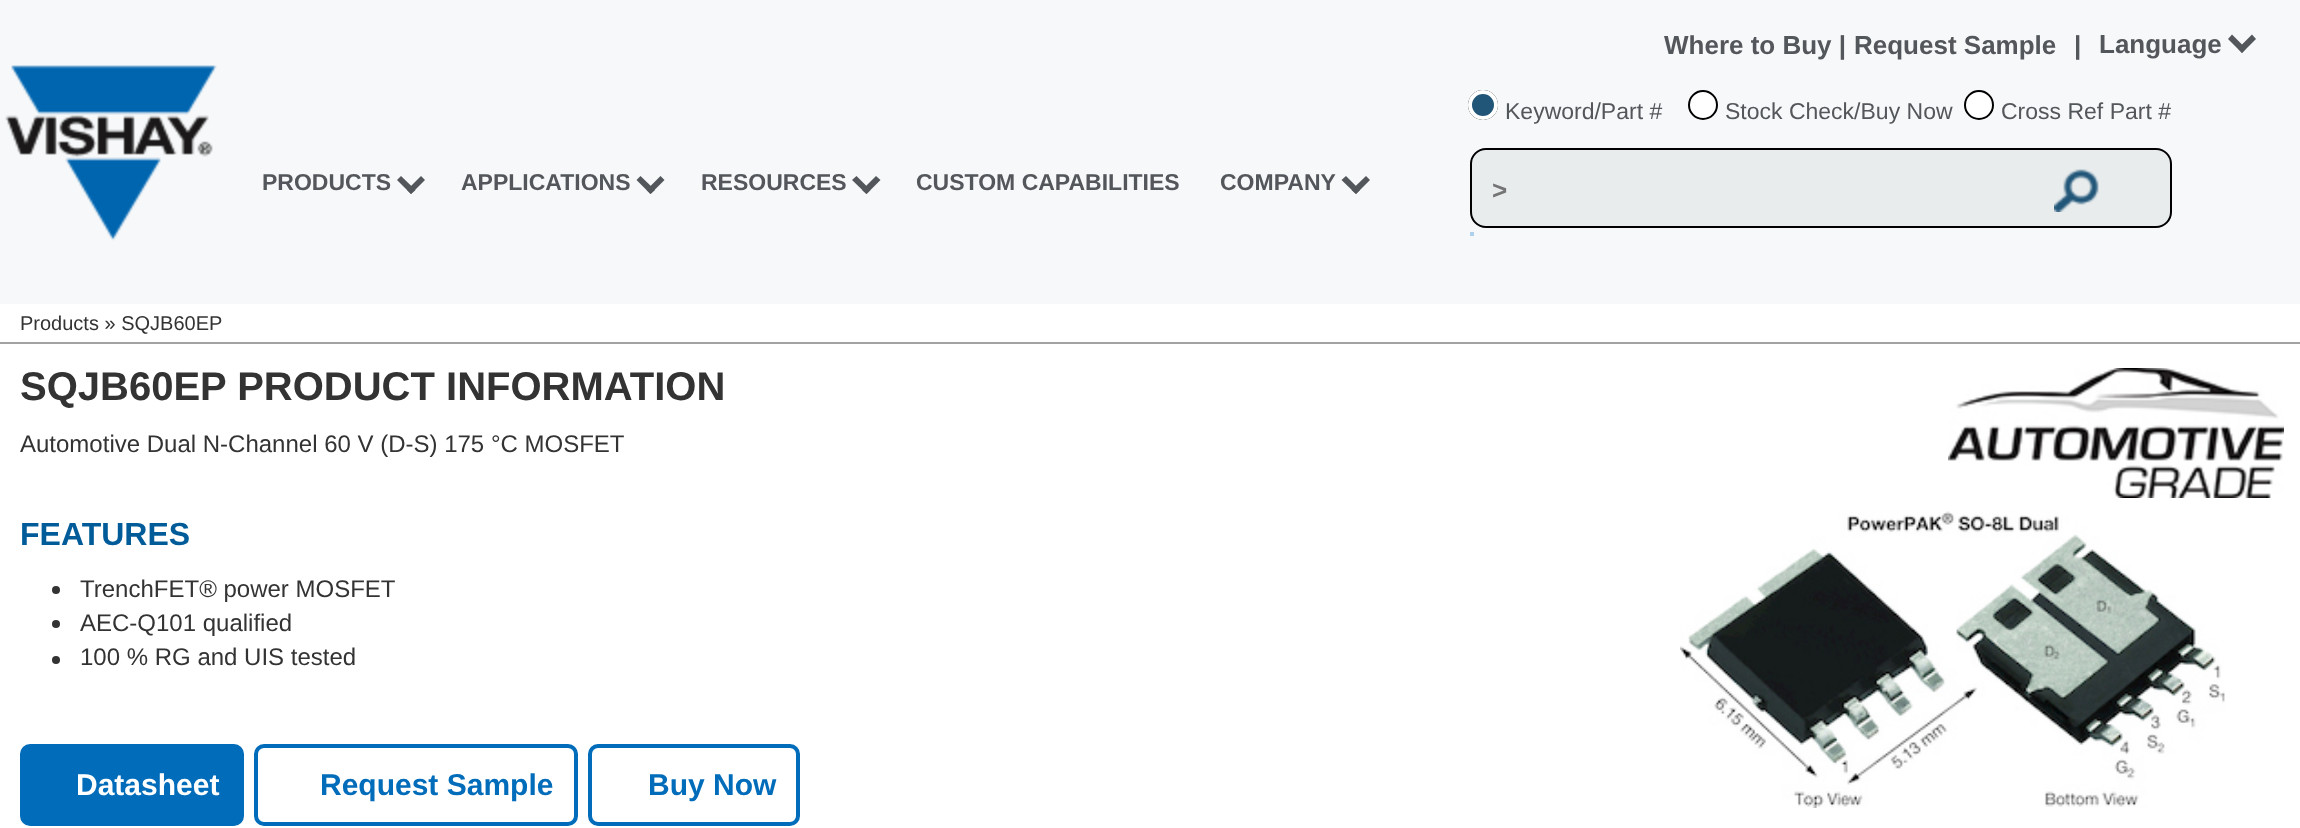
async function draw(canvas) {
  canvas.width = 2300;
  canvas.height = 828;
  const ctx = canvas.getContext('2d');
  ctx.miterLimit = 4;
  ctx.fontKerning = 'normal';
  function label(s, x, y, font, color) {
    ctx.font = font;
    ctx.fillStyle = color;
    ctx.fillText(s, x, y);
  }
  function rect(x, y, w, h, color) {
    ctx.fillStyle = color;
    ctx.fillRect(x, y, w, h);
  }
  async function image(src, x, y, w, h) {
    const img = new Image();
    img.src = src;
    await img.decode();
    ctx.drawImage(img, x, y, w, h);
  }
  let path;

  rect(0, 0, 2300, 828, '#fff');
  rect(0, 0, 2300, 304, '#f6f8f9');
  label('Where to Buy |', 1664, 54, 'bold 26px Liberation Sans', '#53565a');
  label('Request Sample', 1854, 54, 'bold 26px Liberation Sans', '#53565a');
  label('|', 2074, 54, 'bold 26px Liberation Sans', '#53565a');
  label('Language', 2099, 53, 'bold 26px Liberation Sans', '#53565a');
  path = new Path2D('M2252 34.5L2256 39L2242 53L2238 48.5Z');
  ctx.fill(path);
  path = new Path2D('M2232 34.5L2246 48.5L2242 53L2228 39Z');
  ctx.fill(path);
  await image('assets/img1.png', 5, 65, 212, 176);
  label('PRODUCTS', 262, 190, 'bold 23px Liberation Sans', '#53565a');
  path = new Path2D('M421 176L425 180L411 194L407 190Z');
  ctx.fill(path);
  path = new Path2D('M401 176L415.5 190L411 194L397 180Z');
  ctx.fill(path);
  label('APPLICATIONS', 461, 190, 'bold 23px Liberation Sans', '#53565a');
  path = new Path2D('M660.5 176L664.5 180L650.5 194L646.5 190Z');
  ctx.fill(path);
  path = new Path2D('M640.5 176L655 190L650.5 194L636.5 180Z');
  ctx.fill(path);
  label('RESOURCES', 701, 190, 'bold 23px Liberation Sans', '#53565a');
  path = new Path2D('M876 176L880.5 180L866.5 194L862 190Z');
  ctx.fill(path);
  path = new Path2D('M856.5 176L870.5 190L866.5 194L852 180Z');
  ctx.fill(path);
  label('CUSTOM CAPABILITIES', 916, 190, 'bold 23px Liberation Sans', '#53565a');
  label('COMPANY', 1220, 190, 'bold 23px Liberation Sans', '#53565a');
  path = new Path2D('M1366 176L1370 180L1356 194L1351.5 190Z');
  ctx.fill(path);
  path = new Path2D('M1346 176L1360 190L1356 194L1341.5 180Z');
  ctx.fill(path);
  ctx.beginPath();
  ctx.arc(1483, 105, 14, 0, 2 * Math.PI);
  ctx.strokeStyle = '#000';
  ctx.lineWidth = 2;
  ctx.stroke();
  ctx.fillStyle = '#225678';
  ctx.beginPath();
  ctx.arc(1483, 105, 13, 0, 2 * Math.PI);
  ctx.fill();
  ctx.strokeStyle = '#fff';
  ctx.lineWidth = 4;
  ctx.stroke();
  label('Keyword/Part #', 1505, 119, '23px Liberation Sans', '#53565a');
  ctx.fillStyle = '#fff';
  ctx.beginPath();
  ctx.arc(1703, 105, 14, 0, 2 * Math.PI);
  ctx.fill();
  ctx.strokeStyle = '#000';
  ctx.lineWidth = 2;
  ctx.stroke();
  label('Stock Check/Buy Now', 1725, 119, '23px Liberation Sans', '#53565a');
  ctx.fillStyle = '#fff';
  ctx.beginPath();
  ctx.arc(1979, 105, 14, 0, 2 * Math.PI);
  ctx.fill();
  ctx.stroke();
  label('Cross Ref Part #', 2001, 119, '23px Liberation Sans', '#53565a');
  ctx.fillStyle = '#e8eced';
  ctx.beginPath();
  ctx.roundRect(1471, 149, 700, 78, 15);
  ctx.fill();
  ctx.stroke();
  label('>', 1492, 199, 'bold 26px Liberation Sans', '#757575');
  await image('assets/img2.png', 2054, 169, 45, 43);
  rect(1470, 232, 4, 4, '#aed0ea');
  rect(0, 342, 2300, 2, '#a2a2a2');
  label('Products » SQJB60EP', 20, 330, '20px Liberation Sans', '#333');
  label('SQJB60EP PRODUCT INFORMATION', 20, 400, 'bold 40px Liberation Sans', '#333');
  label('Automotive Dual N-Channel 60 V (D-S) 175 °C MOSFET', 20, 452, '24px Liberation Sans', '#333');
  label('FEATURES', 20, 545, 'bold 32px Liberation Sans', '#005c99');
  ctx.fillStyle = '#333';
  ctx.beginPath();
  ctx.arc(56, 590, 4, 0, 2 * Math.PI);
  ctx.fill();
  label('TrenchFET® power MOSFET', 80, 597, '24px Liberation Sans', '#333');
  ctx.beginPath();
  ctx.arc(56, 624, 4, 0, 2 * Math.PI);
  ctx.fill();
  label('AEC-Q101 qualified', 80, 631, '24px Liberation Sans', '#333');
  ctx.beginPath();
  ctx.arc(56, 660, 4, 0, 2 * Math.PI);
  ctx.fill();
  label('100 % RG and UIS tested', 80, 665, '24px Liberation Sans', '#333');
  await image('assets/img3.png', 1948, 368, 336, 130);
  await image('assets/img4.png', 1680, 511, 545, 297);
  ctx.fillStyle = '#006cba';
  ctx.beginPath();
  ctx.roundRect(22, 746, 220, 78, 8);
  ctx.fill();
  ctx.strokeStyle = '#006cba';
  ctx.lineWidth = 4;
  ctx.stroke();
  label('Datasheet', 76, 795, 'bold 30px Liberation Sans', '#fff');
  ctx.beginPath();
  ctx.roundRect(256, 746, 320, 78, 8);
  ctx.stroke();
  label('Request Sample', 320, 795, 'bold 30px Liberation Sans', '#006cba');
  ctx.beginPath();
  ctx.roundRect(590, 746, 208, 78, 8);
  ctx.stroke();
  label('Buy Now', 648, 795, 'bold 30px Liberation Sans', '#006cba');
}

draw(document.querySelector('canvas'));
